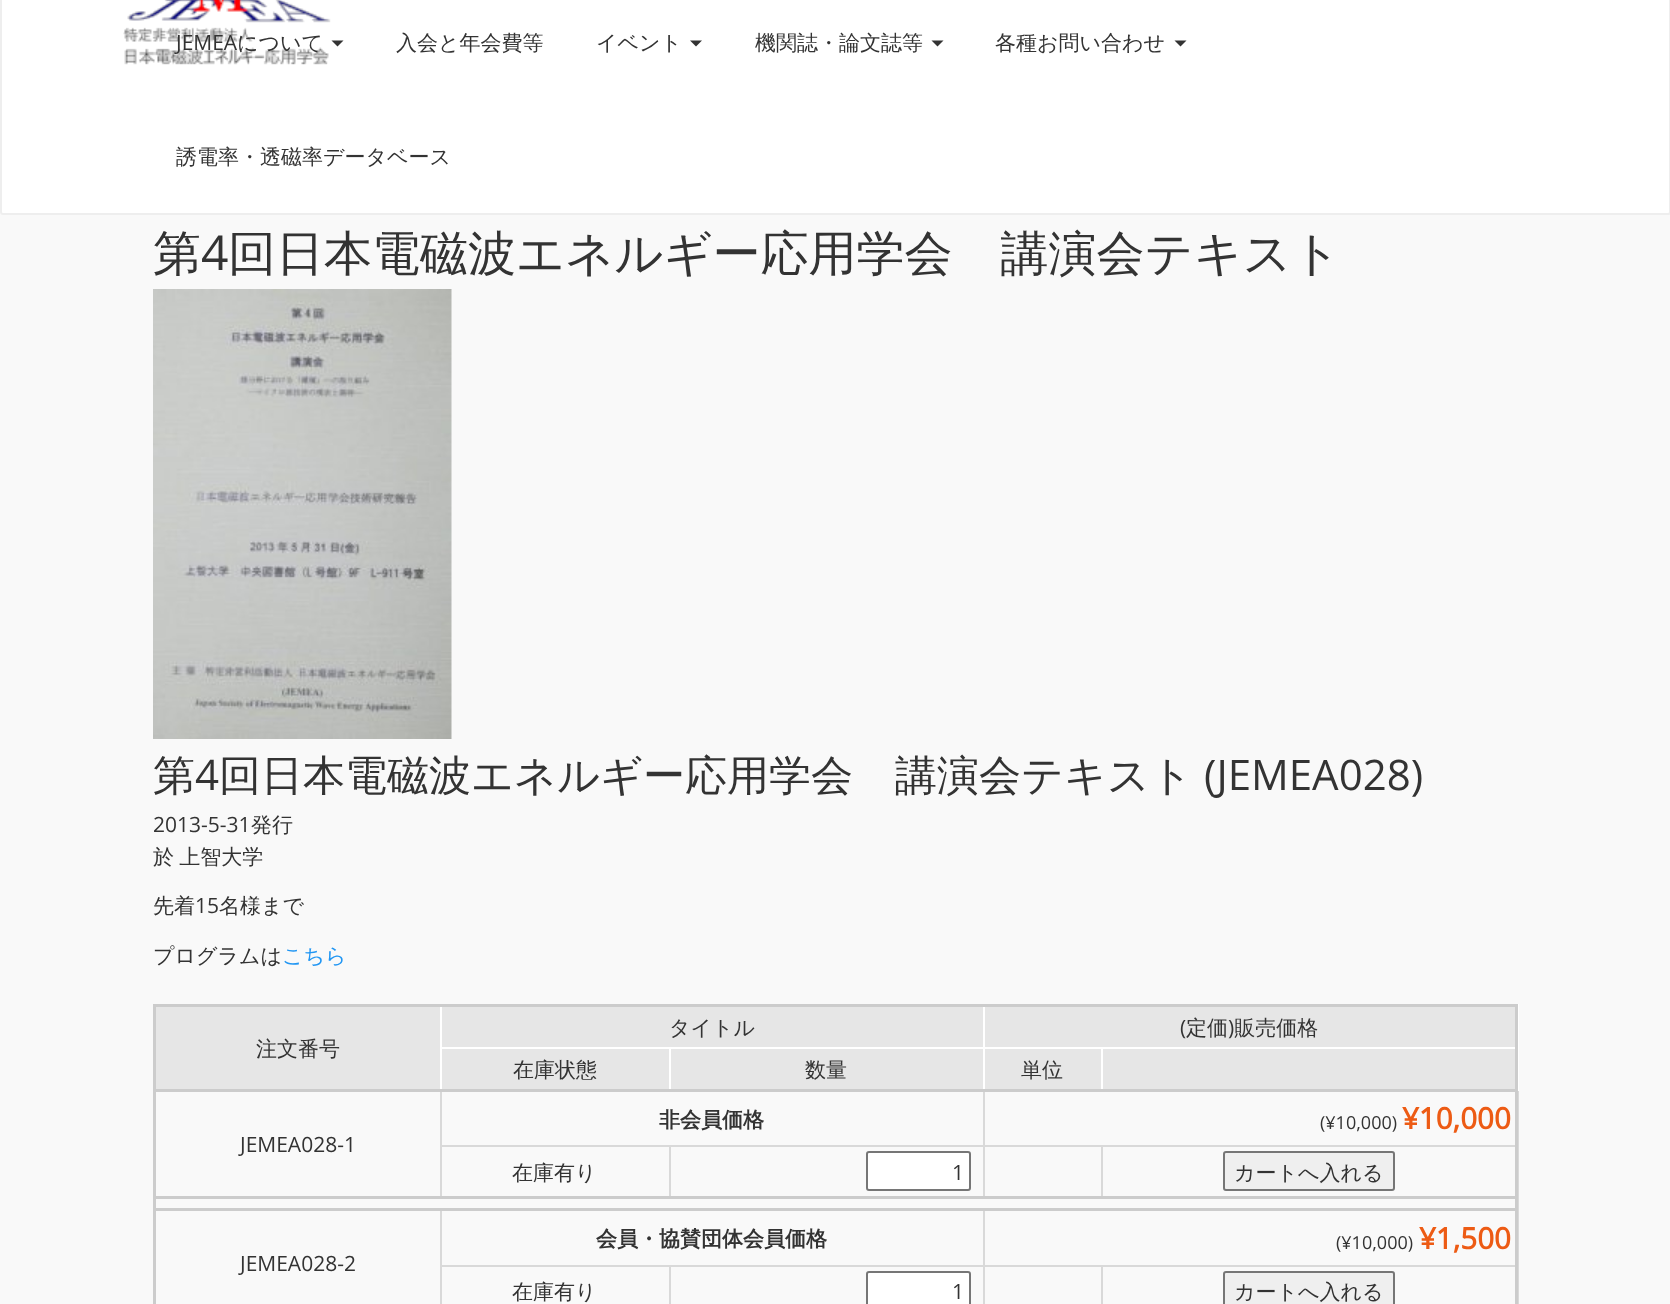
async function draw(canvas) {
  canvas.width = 1670;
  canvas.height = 1304;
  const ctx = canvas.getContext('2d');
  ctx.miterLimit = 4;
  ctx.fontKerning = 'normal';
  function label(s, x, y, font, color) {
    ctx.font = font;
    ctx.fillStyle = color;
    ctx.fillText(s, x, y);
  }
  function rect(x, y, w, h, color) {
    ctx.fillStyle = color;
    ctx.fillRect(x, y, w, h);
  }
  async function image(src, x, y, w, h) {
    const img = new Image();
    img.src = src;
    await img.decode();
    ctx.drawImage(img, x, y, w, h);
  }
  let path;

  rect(0, 0, 1670, 1304, '#f9f9f9');
  ctx.fillStyle = '#fff';
  ctx.beginPath();
  ctx.roundRect(1, -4, 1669, 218, 2);
  ctx.fill();
  ctx.strokeStyle = '#eee';
  ctx.lineWidth = 2;
  ctx.stroke();
  await image('assets/img1.png', 123, 0, 208, 65);
  label('JEMEA', 176, 50, '21px Open Sans', '#333');
  label('について', 237, 50, '500 21px WenQuanYi Zen Hei', '#333');
  path = new Path2D('M331.5 40.5H343.5L337.5 46.5Z');
  ctx.fill(path);
  label('入会と年会費等', 396, 50, '500 21px WenQuanYi Zen Hei', '#333');
  label('イベント', 596, 50, '500 21px WenQuanYi Zen Hei', '#333');
  path = new Path2D('M690 40.5H702L696 46.5Z');
  ctx.fill(path);
  label('機関誌・論文誌等', 755, 50, '500 21px WenQuanYi Zen Hei', '#333');
  path = new Path2D('M931.5 40.5H943.5L937.5 46.5Z');
  ctx.fill(path);
  label('各種お問い合わせ', 995, 50, '500 21px WenQuanYi Zen Hei', '#333');
  path = new Path2D('M1174.5 40.5H1186.5L1180.5 46.5Z');
  ctx.fill(path);
  label('誘電率・透磁率データベース', 176, 164, '500 21px WenQuanYi Zen Hei', '#333');
  label('第', 153, 270, '500 48px WenQuanYi Zen Hei', '#333');
  label('4', 201, 270, '48px Open Sans', '#333');
  label('回日本電磁波エネルギー応用学会　講演会テキスト', 228, 270, '500 48px WenQuanYi Zen Hei', '#333');
  await image('assets/img2.png', 153, 289, 299, 450);
  label('第', 153, 790, '500 42px WenQuanYi Zen Hei', '#333');
  label('4', 195, 790, '42px Open Sans', '#333');
  label('回日本電磁波エネルギー応用学会　講演会テキスト', 219, 790, '500 42px WenQuanYi Zen Hei', '#333');
  label('(JEMEA028)', 1204, 790, '42px Open Sans', '#333');
  label('2013-5-31', 153, 832, '21px Open Sans', '#333');
  label('発行', 251, 832, '500 21px WenQuanYi Zen Hei', '#333');
  ctx.wordSpacing = '-1px';
  label('於 上智大学', 153, 864, '500 21px WenQuanYi Zen Hei', '#333');
  ctx.wordSpacing = '0px';
  label('先着', 153, 913, '500 21px WenQuanYi Zen Hei', '#333');
  label('15', 195, 913, '21px Open Sans', '#333');
  label('名様まで', 219, 913, '500 21px WenQuanYi Zen Hei', '#333');
  label('プログラムは', 153, 963, '500 21px WenQuanYi Zen Hei', '#333');
  label('こちら', 282, 963, '500 21px WenQuanYi Zen Hei', '#2196f3');
  rect(983, 1145, 2, 54, '#d9d9d9');
  rect(1101, 1145, 2, 54, '#d9d9d9');
  rect(983, 1145, 535, 2, '#d9d9d9');
  rect(983, 1089, 2, 57, '#d9d9d9');
  rect(983, 1047, 2, 44, '#fff');
  rect(1101, 1047, 2, 44, '#fff');
  rect(983, 1047, 535, 2, '#fff');
  rect(983, 1004, 2, 45, '#fff');
  rect(669, 1047, 2, 44, '#fff');
  rect(440, 1047, 544, 2, '#fff');
  rect(669, 1145, 2, 54, '#d9d9d9');
  rect(440, 1145, 544, 2, '#d9d9d9');
  rect(440, 1089, 2, 110, '#d9d9d9');
  rect(440, 1004, 2, 87, '#fff');
  rect(153, 1004, 1365, 3, '#ccc');
  rect(983, 1265, 2, 39, '#d9d9d9');
  rect(1101, 1265, 2, 39, '#d9d9d9');
  rect(983, 1265, 535, 2, '#d9d9d9');
  rect(1515, 1004, 3, 300, '#ccc');
  rect(153, 1004, 3, 300, '#ccc');
  rect(442, 1007, 541, 40, '#e6e6e6');
  label('タイトル', 669, 1035, '500 21px WenQuanYi Zen Hei', '#333');
  rect(985, 1007, 530, 40, '#e6e6e6');
  label('(', 1180, 1035, '21px Open Sans', '#333');
  label('定価 販売価格', 1186, 1035, '500 21px WenQuanYi Zen Hei', '#333');
  label(')', 1228, 1035, '21px Open Sans', '#333');
  rect(156, 1007, 284, 82, '#e6e6e6');
  label('注文番号', 256, 1056, '500 21px WenQuanYi Zen Hei', '#333');
  rect(1103, 1049, 412, 40, '#e6e6e6');
  rect(1518, 1089, 1, 215, '#d9d9d9');
  rect(1518, 1004, 1, 87, '#fff');
  rect(153, 1089, 1365, 3, '#ccc');
  rect(442, 1049, 227, 40, '#e6e6e6');
  label('在庫状態', 513, 1077, '500 21px WenQuanYi Zen Hei', '#333');
  rect(671, 1049, 312, 40, '#e6e6e6');
  label('数量', 805, 1077, '500 21px WenQuanYi Zen Hei', '#333');
  rect(985, 1049, 116, 40, '#e6e6e6');
  label('単位', 1021, 1077, '500 21px WenQuanYi Zen Hei', '#333');
  label('非会員価格', 659, 1127, 'bold 21px WenQuanYi Zen Hei', '#333');
  label('(¥10,000)', 1320, 1129, '18px Open Sans', '#333');
  label('¥10,000', 1402, 1129, 'bold 29.5px Open Sans', '#ed5b14');
  label('JEMEA028-1', 240, 1152, '21px Open Sans', '#333');
  label('在庫有り', 512, 1180, '500 21px WenQuanYi Zen Hei', '#333');
  ctx.fillStyle = '#fff';
  ctx.beginPath();
  ctx.roundRect(867, 1152, 103, 38, 2);
  ctx.fill();
  ctx.strokeStyle = '#767676';
  ctx.stroke();
  label('1', 952, 1180, '21px Open Sans', '#333');
  rect(153, 1196, 1365, 3, '#ccc');
  ctx.fillStyle = '#efefef';
  ctx.beginPath();
  ctx.roundRect(1224, 1152, 170, 38, 2);
  ctx.fill();
  ctx.stroke();
  label('カートへ入れる', 1234, 1180, '500 21px WenQuanYi Zen Hei', '#333');
  rect(983, 1209, 2, 57, '#d9d9d9');
  rect(669, 1265, 2, 39, '#d9d9d9');
  rect(440, 1265, 544, 2, '#d9d9d9');
  rect(440, 1209, 2, 95, '#d9d9d9');
  rect(153, 1208, 1365, 3, '#ccc');
  label('会員・協賛団体会員価格', 596, 1246, 'bold 21px WenQuanYi Zen Hei', '#333');
  label('(¥10,000)', 1336, 1249, '18px Open Sans', '#333');
  label('¥1,500', 1419, 1249, 'bold 29.5px Open Sans', '#ed5b14');
  label('JEMEA028-2', 240, 1271, '21px Open Sans', '#333');
  label('在庫有り', 512, 1299, '500 21px WenQuanYi Zen Hei', '#333');
  ctx.fillStyle = '#fff';
  ctx.beginPath();
  ctx.roundRect(867, 1272, 103, 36, 2);
  ctx.fill();
  ctx.stroke();
  label('1', 952, 1299, '21px Open Sans', '#333');
  ctx.fillStyle = '#efefef';
  ctx.beginPath();
  ctx.roundRect(1224, 1272, 170, 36, 2);
  ctx.fill();
  ctx.stroke();
  label('カートへ入れる', 1234, 1299, '500 21px WenQuanYi Zen Hei', '#333');
}

draw(document.querySelector('canvas'));
